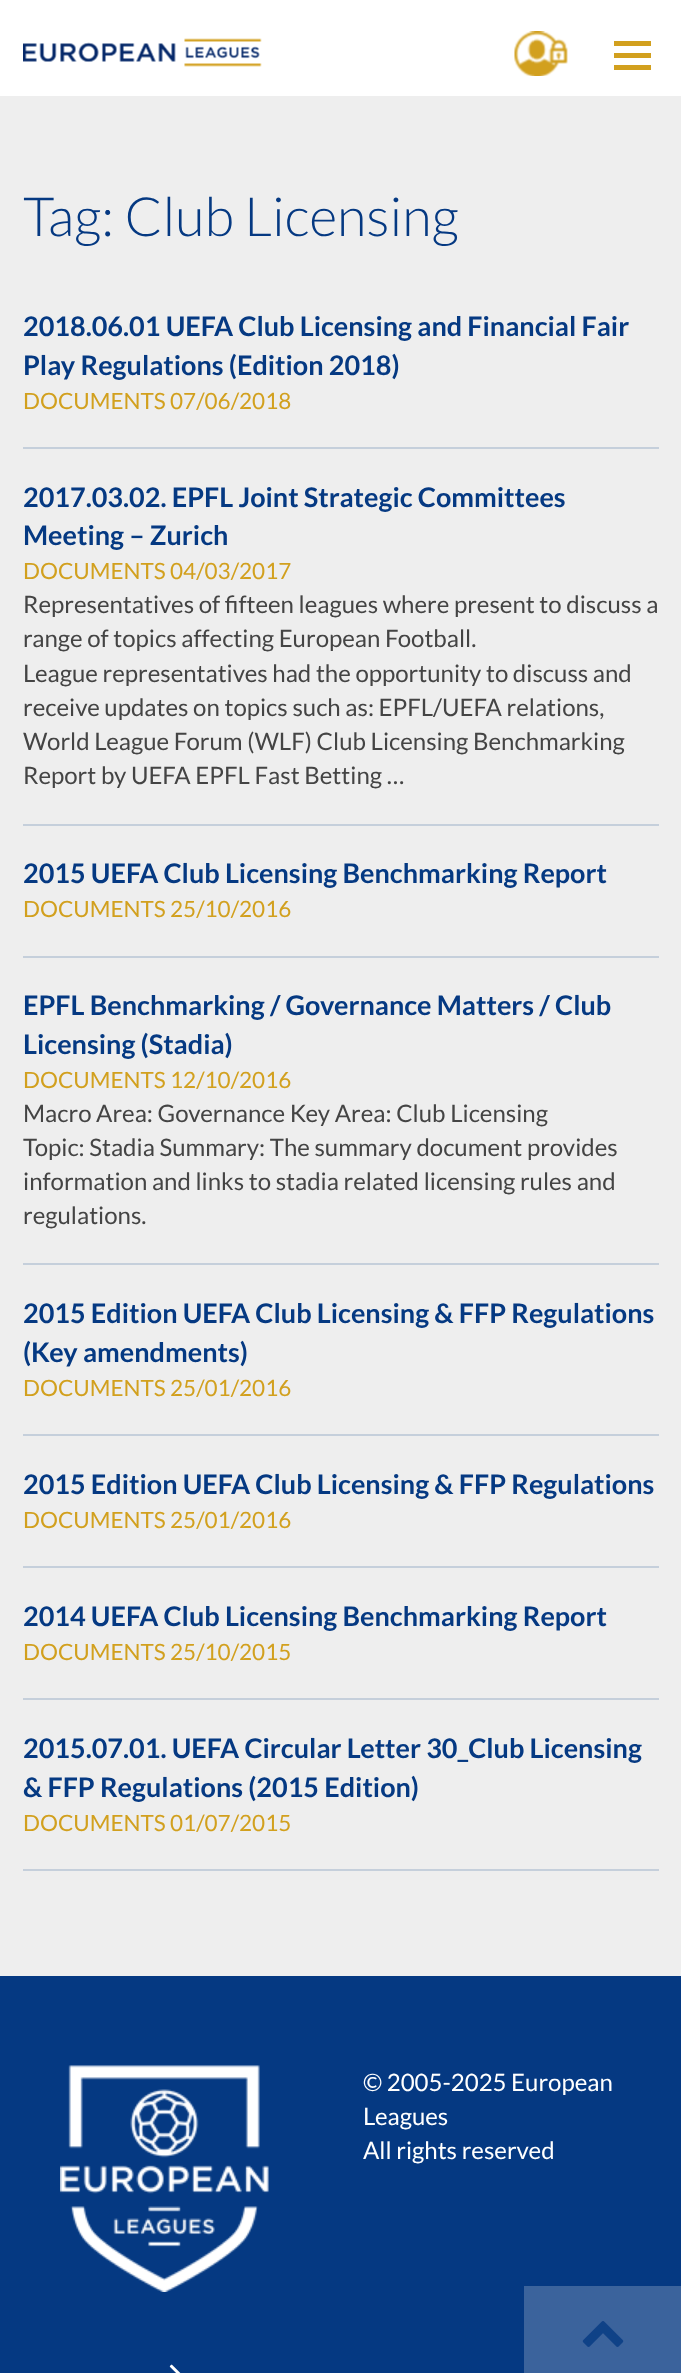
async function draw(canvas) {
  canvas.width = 681;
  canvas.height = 2373;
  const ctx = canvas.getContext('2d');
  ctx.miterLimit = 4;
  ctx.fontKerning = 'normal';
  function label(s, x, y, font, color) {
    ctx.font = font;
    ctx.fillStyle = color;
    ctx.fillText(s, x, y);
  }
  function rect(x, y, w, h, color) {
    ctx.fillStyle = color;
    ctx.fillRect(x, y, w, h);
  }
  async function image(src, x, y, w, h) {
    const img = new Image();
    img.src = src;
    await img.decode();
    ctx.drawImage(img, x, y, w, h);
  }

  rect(0, 0, 681, 2373, '#eee');
  rect(0, 0, 681, 96, '#fff');
  await image('assets/img1.png', 23, 38, 239, 29);
  await image('assets/img2.png', 514, 31, 54, 45);
  rect(614, 53, 37, 5, '#d2a01e');
  rect(614, 41, 37, 5, '#d2a01e');
  rect(614, 65, 37, 5, '#d2a01e');
  label('Tag: Club Licensing', 23, 236, '300 54px Lato', '#053982');
  rect(23, 447, 636, 2, '#c5cfdb');
  label('2018.06.01 UEFA Club Licensing and Financial Fair', 23, 336, 'bold 27px Lato', '#053982');
  label('Play Regulations (Edition 2018)', 23, 375, 'bold 27px Lato', '#053982');
  label('DOCUMENTS 07/06/2018', 23, 409, '22.5px Lato', '#d2a01e');
  rect(23, 824, 636, 2, '#c5cfdb');
  label('2017.03.02. EPFL Joint Strategic Committees', 23, 507, 'bold 27px Lato', '#053982');
  label('Meeting – Zurich', 23, 545, 'bold 27px Lato', '#053982');
  label('DOCUMENTS 04/03/2017', 23, 579, '22.5px Lato', '#d2a01e');
  label('Representatives of fifteen leagues where present to discuss a', 23, 613, '24px Lato', '#444');
  label('range of topics affecting European Football.', 23, 647, '24px Lato', '#444');
  label('League representatives had the opportunity to discuss and', 23, 682, '24px Lato', '#444');
  label('receive updates on topics such as: EPFL/UEFA relations,', 23, 716, '24px Lato', '#444');
  label('World League Forum (WLF) Club Licensing Benchmarking', 23, 750, '24px Lato', '#444');
  label('Report by UEFA EPFL Fast Betting …', 23, 784, '24px Lato', '#444');
  rect(23, 956, 636, 2, '#c5cfdb');
  label('2015 UEFA Club Licensing Benchmarking Report', 23, 883, 'bold 27px Lato', '#053982');
  label('DOCUMENTS 25/10/2016', 23, 917, '22.5px Lato', '#d2a01e');
  rect(23, 1263, 636, 2, '#c5cfdb');
  label('EPFL Benchmarking / Governance Matters / Club', 23, 1015, 'bold 27px Lato', '#053982');
  label('Licensing (Stadia)', 23, 1054, 'bold 27px Lato', '#053982');
  label('DOCUMENTS 12/10/2016', 23, 1088, '22.5px Lato', '#d2a01e');
  label('Macro Area: Governance Key Area: Club Licensing', 23, 1122, '24px Lato', '#444');
  label('Topic: Stadia Summary: The summary document provides', 23, 1156, '24px Lato', '#444');
  label('information and links to stadia related licensing rules and', 23, 1190, '24px Lato', '#444');
  label('regulations.', 23, 1224, '24px Lato', '#444');
  rect(23, 1434, 636, 2, '#c5cfdb');
  label('2015 Edition UEFA Club Licensing & FFP Regulations', 23, 1323, 'bold 27px Lato', '#053982');
  label('(Key amendments)', 23, 1362, 'bold 27px Lato', '#053982');
  label('DOCUMENTS 25/01/2016', 23, 1396, '22.5px Lato', '#d2a01e');
  rect(23, 1566, 636, 2, '#c5cfdb');
  label('2015 Edition UEFA Club Licensing & FFP Regulations', 23, 1494, 'bold 27px Lato', '#053982');
  label('DOCUMENTS 25/01/2016', 23, 1528, '22.5px Lato', '#d2a01e');
  rect(23, 1698, 636, 2, '#c5cfdb');
  label('2014 UEFA Club Licensing Benchmarking Report', 23, 1626, 'bold 27px Lato', '#053982');
  label('DOCUMENTS 25/10/2015', 23, 1660, '22.5px Lato', '#d2a01e');
  rect(23, 1869, 636, 2, '#c5cfdb');
  label('2015.07.01. UEFA Circular Letter 30_Club Licensing', 23, 1758, 'bold 27px Lato', '#053982');
  label('& FFP Regulations (2015 Edition)', 23, 1797, 'bold 27px Lato', '#053982');
  label('DOCUMENTS 01/07/2015', 23, 1831, '22.5px Lato', '#d2a01e');
  rect(0, 1976, 681, 397, '#053982');
  await image('assets/img3.png', 60, 2065, 209, 227);
  label('© 2005-2025 European', 363, 2091, '24px Lato', '#fff');
  label('Leagues', 363, 2125, '24px Lato', '#fff');
  label('All rights reserved', 363, 2159, '24px Lato', '#fff');
  await image('assets/img4.png', 169, 2364, 12, 9);
  rect(524, 2286, 157, 87, '#3b639c');
  await image('assets/img5.png', 582, 2321, 42, 26);
}

draw(document.querySelector('canvas'));
